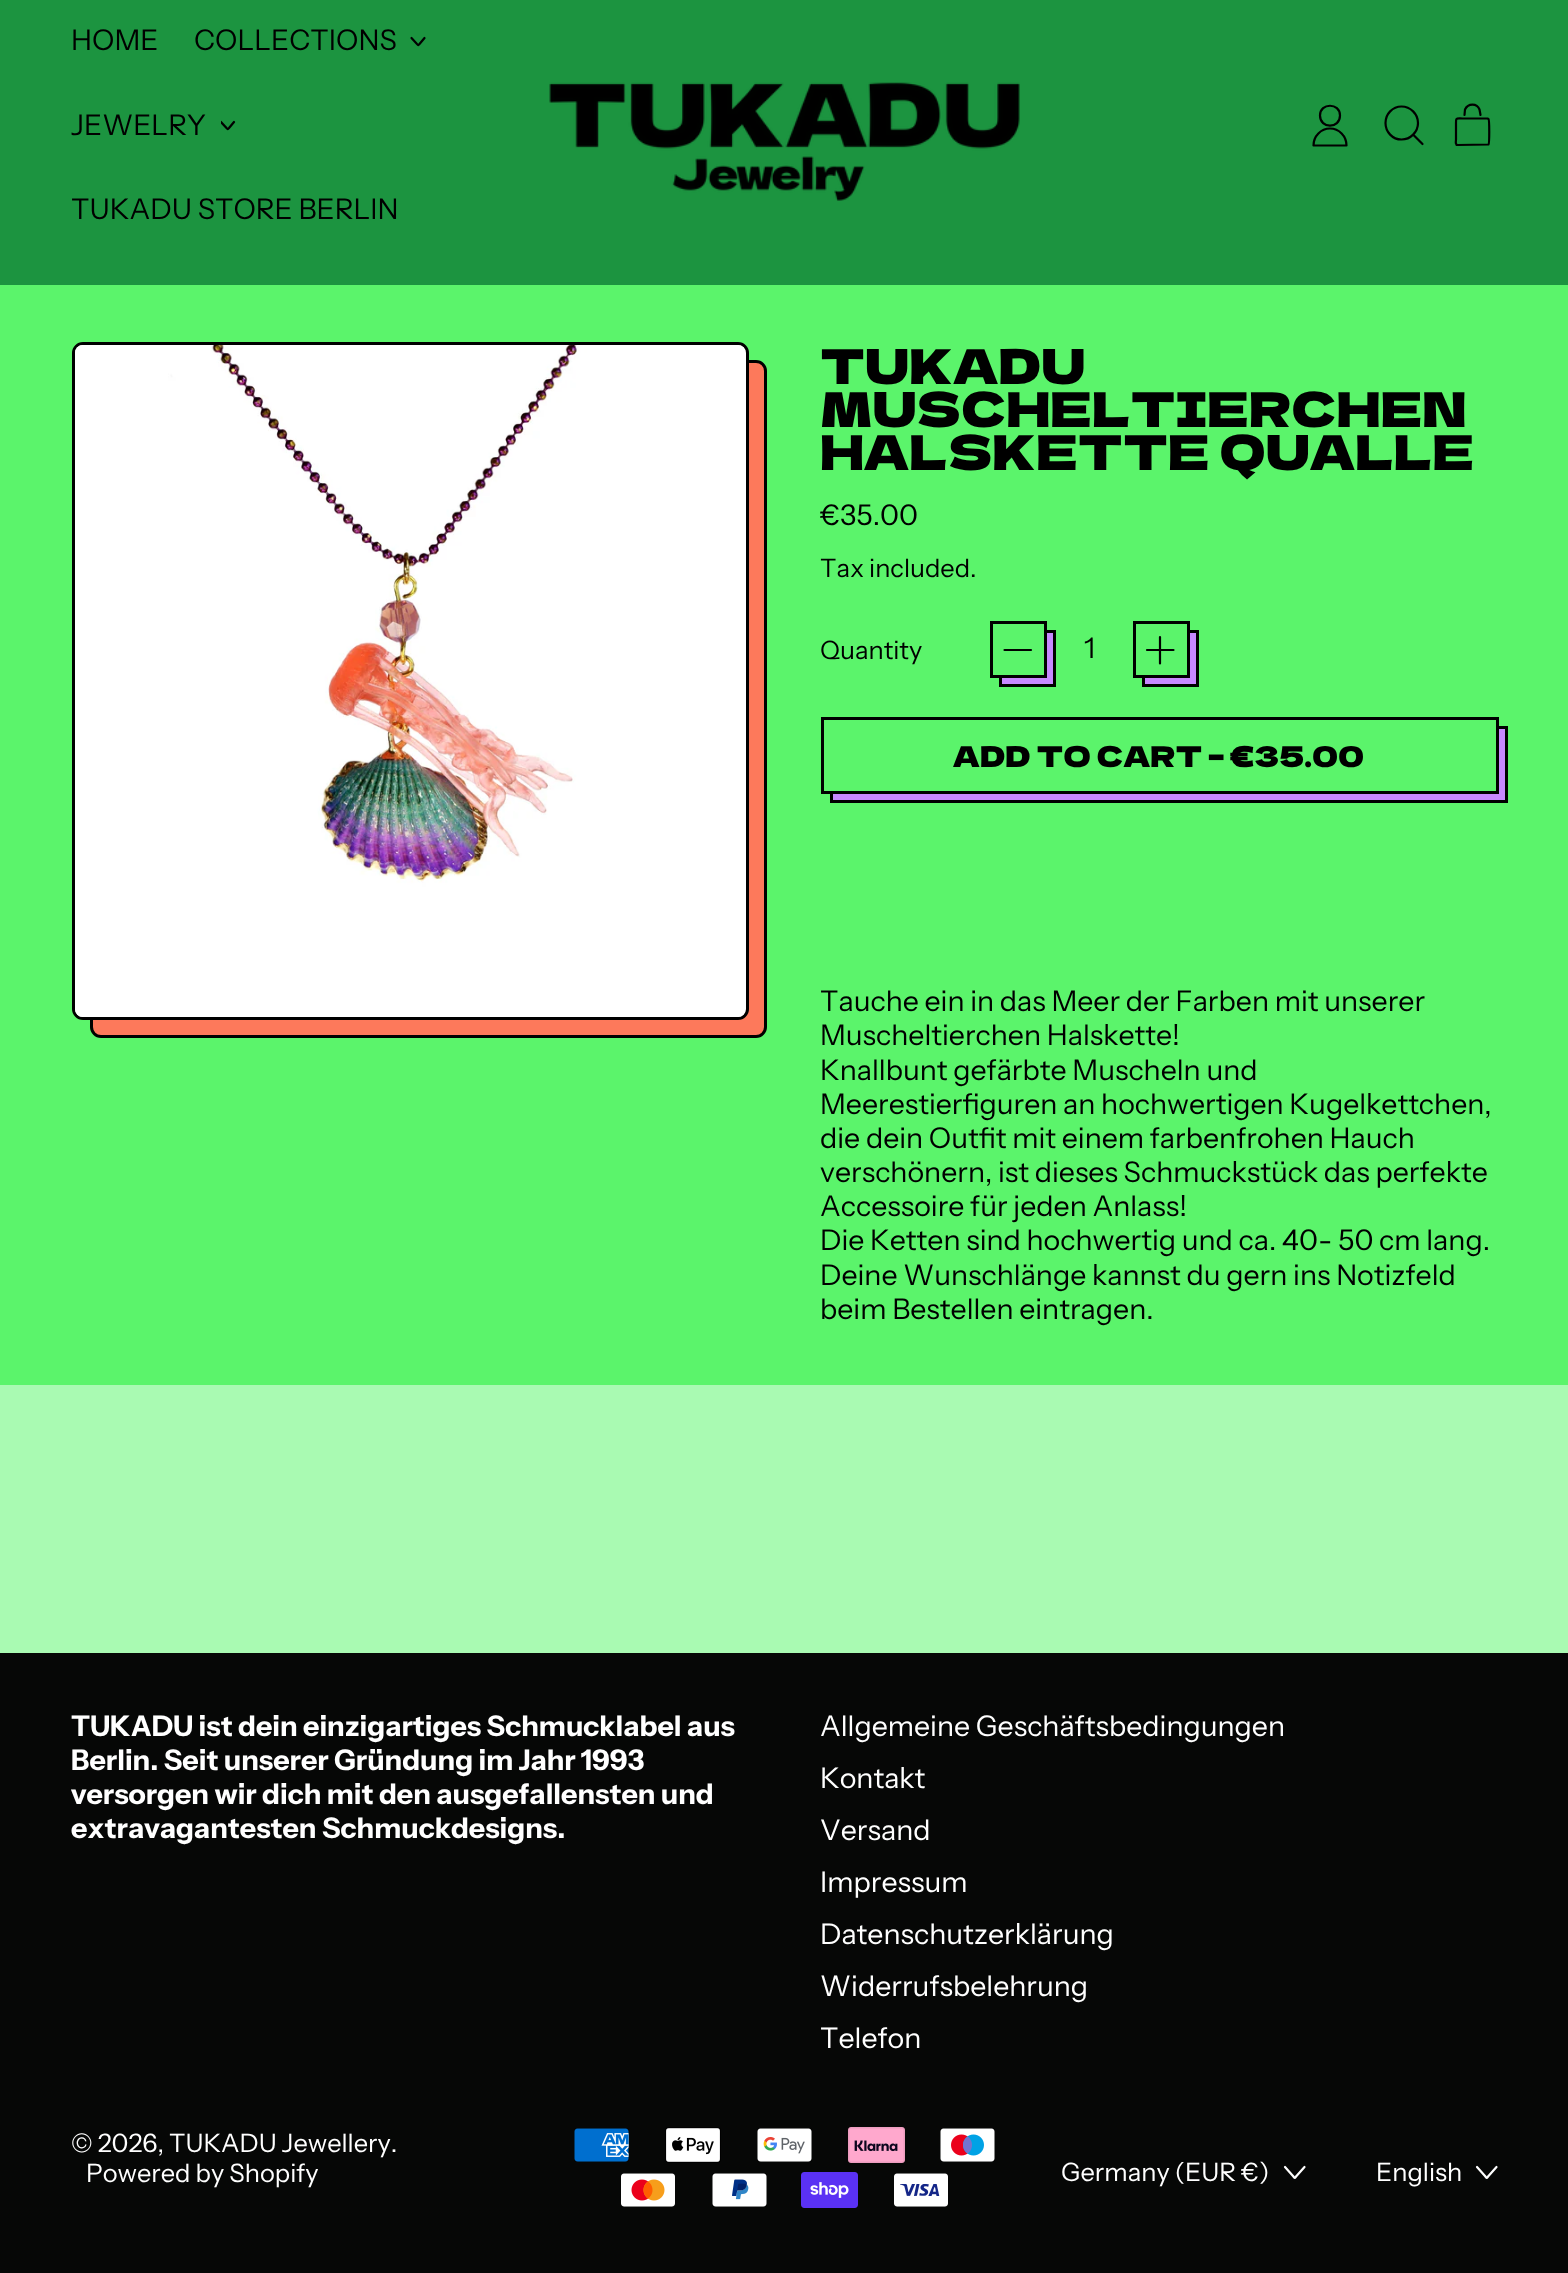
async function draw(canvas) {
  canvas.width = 1568;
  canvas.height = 2273;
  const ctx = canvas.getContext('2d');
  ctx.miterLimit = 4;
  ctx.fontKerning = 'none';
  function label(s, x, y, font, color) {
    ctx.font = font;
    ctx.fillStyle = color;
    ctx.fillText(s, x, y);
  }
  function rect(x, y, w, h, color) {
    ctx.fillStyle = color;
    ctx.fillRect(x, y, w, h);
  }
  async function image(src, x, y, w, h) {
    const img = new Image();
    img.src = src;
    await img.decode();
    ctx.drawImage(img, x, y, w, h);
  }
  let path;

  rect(0, 0, 1568, 2273, '#a9fab2');
  rect(0, 0, 1568, 285, '#1c9440');
  label('HOME', 71, 50, '28.5px Instrument Sans', '#000');
  label('COLLECTIONS', 194, 50, '28.5px Instrument Sans', '#000');
  path = new Path2D('M411.5 38L417 44C418.5 45.5 418 45.5 419.5 44L424.5 38');
  ctx.strokeStyle = '#000';
  ctx.lineWidth = 2.2;
  ctx.lineCap = 'round';
  ctx.lineJoin = 'round';
  ctx.stroke(path);
  label('JEWELRY', 71, 135, '28.5px Instrument Sans', '#000');
  ctx.save();
  ctx.beginPath();
  ctx.rect(221, 119, 15, 15);
  ctx.clip();
  path = new Path2D('M221 122L226.5 128C228 129.5 227.5 129.5 229 128L234 122');
  ctx.stroke(path);
  ctx.restore();
  label('TUKADU STORE BERLIN', 71, 219, '28.5px Instrument Sans', '#000');
  await image('assets/img1.png', 549, 82, 471, 119);
  path = new Path2D('M1320 115.5C1320 129 1340 129 1340 115.5C1340 102.5 1320 102.5 1320 115.5ZM1313.5 145.5C1313.5 136 1321 128.5 1330 128.5C1339 128.5 1346.5 136 1346.5 145.5Z');
  ctx.stroke(path);
  path = new Path2D('M1385.5 123C1385.5 132 1392.5 139.5 1401.5 139.5C1410.5 139.5 1418 132 1418 123C1418 114 1410.5 106.5 1401.5 106.5C1392.5 106.5 1385.5 114 1385.5 123ZM1422.5 144L1413 134.5');
  ctx.stroke(path);
  path = new Path2D('M1487.5 118.5H1462.5C1455.5 118.5 1456 117.5 1456 124V139.5C1456 140.5 1455 145 1457.5 145L1488.5 144.5C1489.5 143.5 1489.5 120 1488.5 119ZM1464.5 115L1465 109.5C1468 103 1477 103 1479.5 109.5L1480.5 115');
  ctx.stroke(path);
  rect(0, 285, 1568, 1100, '#5bf46b');
  ctx.fillStyle = '#fd795b';
  ctx.beginPath();
  ctx.roundRect(91.5, 361.5, 674, 675, 9.5);
  ctx.fill();
  ctx.lineWidth = 3;
  ctx.lineJoin = 'miter';
  ctx.stroke();
  ctx.fillStyle = '#fff';
  ctx.beginPath();
  ctx.roundRect(73.5, 343.5, 674, 675, 9.5);
  ctx.fill();
  ctx.stroke();
  await image('assets/img2.png', 75, 345, 671, 672);
  label('TUKADU', 820, 384, '48px Dela Gothic One', '#000');
  label('MUSCHELTIERCHEN', 820, 427, '48px Dela Gothic One', '#000');
  label('HALSKETTE QUALLE', 820, 470, '48px Dela Gothic One', '#000');
  label('€35.00', 820, 525, '28.5px Instrument Sans', '#000');
  label('Tax included.', 820, 577, '25.4px Instrument Sans', '#000');
  label('Quantity', 820, 659, '25.4px Instrument Sans', '#000');
  ctx.fillStyle = '#c789ff';
  ctx.beginPath();
  ctx.rect(1000.5, 631.5, 54, 54);
  ctx.fill();
  ctx.stroke();
  rect(999, 630, 45, 45, '#5bf46b');
  ctx.strokeRect(991.5, 622.5, 54, 54);
  path = new Path2D('M1031 650H1004.5');
  ctx.lineWidth = 2.2;
  ctx.lineJoin = 'round';
  ctx.stroke(path);
  label('1', 1084, 658, '28.5px Instrument Sans', '#000');
  ctx.fillStyle = '#c789ff';
  ctx.beginPath();
  ctx.rect(1143.5, 631.5, 54, 54);
  ctx.fill();
  ctx.lineWidth = 3;
  ctx.lineJoin = 'miter';
  ctx.stroke();
  rect(1142, 630, 45, 45, '#5bf46b');
  ctx.strokeRect(1134.5, 622.5, 54, 54);
  path = new Path2D('M1160 637V663.5M1173.5 650H1147');
  ctx.lineWidth = 2.2;
  ctx.lineJoin = 'round';
  ctx.stroke(path);
  ctx.fillStyle = '#c789ff';
  ctx.beginPath();
  ctx.rect(831.5, 727.5, 675, 74);
  ctx.fill();
  ctx.lineWidth = 3;
  ctx.lineJoin = 'miter';
  ctx.stroke();
  rect(830, 726, 666, 65, '#5bf46b');
  ctx.strokeRect(822.5, 718.5, 675, 74);
  label('ADD TO CART – €35.00', 953, 767, '28.5px Dela Gothic One', '#000');
  label('Tauche ein in das Meer der Farben mit unserer', 820, 1011, '28.5px Instrument Sans', '#000');
  label('Muscheltierchen Halskette!', 820, 1045, '28.5px Instrument Sans', '#000');
  label('Knallbunt gefärbte Muscheln und', 820, 1080, '28.5px Instrument Sans', '#000');
  label('Meerestierfiguren an hochwertigen Kugelkettchen,', 820, 1114, '28.5px Instrument Sans', '#000');
  label('die dein Outfit mit einem farbenfrohen Hauch', 820, 1148, '28.5px Instrument Sans', '#000');
  label('verschönern, ist dieses Schmuckstück das perfekte', 820, 1182, '28.5px Instrument Sans', '#000');
  label('Accessoire für jeden Anlass!', 820, 1216, '28.5px Instrument Sans', '#000');
  label('Die Ketten sind hochwertig und ca. 40- 50 cm lang.', 820, 1250, '28.5px Instrument Sans', '#000');
  label('Deine Wunschlänge kannst du gern ins Notizfeld', 820, 1285, '28.5px Instrument Sans', '#000');
  label('beim Bestellen eintragen.', 820, 1319, '28.5px Instrument Sans', '#000');
  rect(0, 1653, 1568, 620, '#060706');
  label('TUKADU ist dein einzigartiges Schmucklabel aus', 71, 1736, 'bold 28.5px Instrument Sans', '#fff');
  label('Berlin. Seit unserer Gründung im Jahr 1993', 71, 1770, 'bold 28.5px Instrument Sans', '#fff');
  label('versorgen wir dich mit den ausgefallensten und', 71, 1804, 'bold 28.5px Instrument Sans', '#fff');
  label('extravagantesten', 71, 1838, 'bold 28.5px Instrument Sans', '#fff');
  label('Schmuckdesigns.', 322, 1838, 'bold 28.5px Instrument Sans', '#fff');
  label('Allgemeine Geschäftsbedingungen', 820, 1736, '28.5px Instrument Sans', '#fff');
  label('Kontakt', 820, 1788, '28.5px Instrument Sans', '#fff');
  label('Versand', 820, 1840, '28.5px Instrument Sans', '#fff');
  label('Impressum', 820, 1892, '28.5px Instrument Sans', '#fff');
  label('Datenschutzerklärung', 820, 1944, '28.5px Instrument Sans', '#fff');
  label('Widerrufsbelehrung', 820, 1996, '28.5px Instrument Sans', '#fff');
  label('Telefon', 820, 2048, '28.5px Instrument Sans', '#fff');
  label('© 2026, TUKADU Jewellery.', 71, 2152, '25.4px Instrument Sans', '#fff');
  label('Powered by Shopify', 86, 2182, '25.4px Instrument Sans', '#fff');
  await image('assets/img3.png', 574, 2128, 55, 34);
  await image('assets/img4.png', 665, 2127, 56, 36);
  await image('assets/img5.png', 757, 2128, 55, 34);
  await image('assets/img6.png', 848, 2127, 57, 36);
  await image('assets/img7.png', 940, 2128, 55, 34);
  await image('assets/img8.png', 621, 2173, 54, 34);
  await image('assets/img9.png', 712, 2173, 55, 34);
  await image('assets/img10.png', 801, 2172, 57, 36);
  await image('assets/img11.png', 894, 2173, 54, 34);
  label('Germany (EUR €)', 1061, 2181, '25.4px Instrument Sans', '#fff');
  path = new Path2D('M1285 2167L1293 2176C1295 2178.5 1294.5 2178.5 1296.5 2176L1304.5 2167');
  ctx.strokeStyle = '#fff';
  ctx.lineWidth = 2.2;
  ctx.lineJoin = 'round';
  ctx.stroke(path);
  label('English', 1376, 2181, '25.4px Instrument Sans', '#fff');
  path = new Path2D('M1477 2167L1485 2176C1487 2178.5 1486.5 2178.5 1488.5 2176L1496.5 2167');
  ctx.stroke(path);
}

draw(document.querySelector('canvas'));
